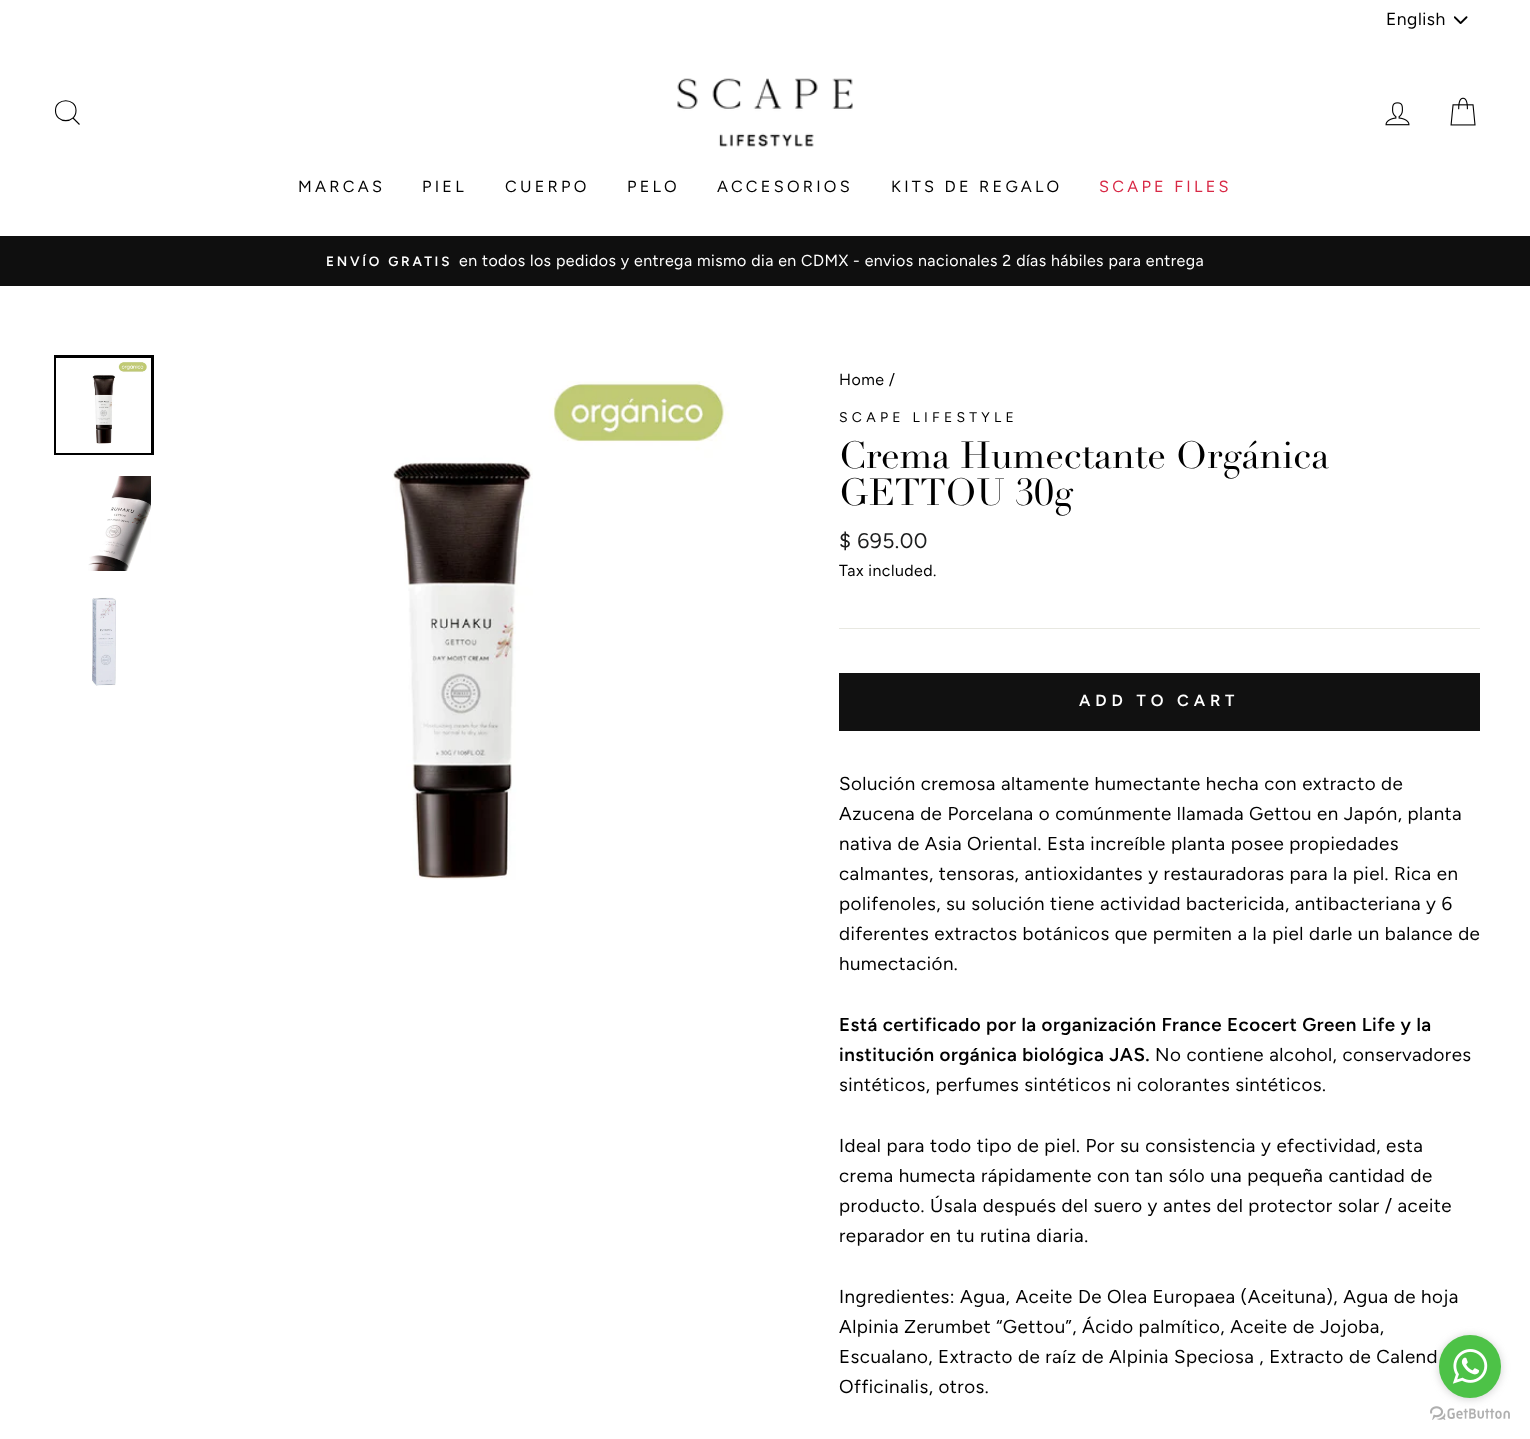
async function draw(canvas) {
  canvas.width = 1530;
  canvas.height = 1439;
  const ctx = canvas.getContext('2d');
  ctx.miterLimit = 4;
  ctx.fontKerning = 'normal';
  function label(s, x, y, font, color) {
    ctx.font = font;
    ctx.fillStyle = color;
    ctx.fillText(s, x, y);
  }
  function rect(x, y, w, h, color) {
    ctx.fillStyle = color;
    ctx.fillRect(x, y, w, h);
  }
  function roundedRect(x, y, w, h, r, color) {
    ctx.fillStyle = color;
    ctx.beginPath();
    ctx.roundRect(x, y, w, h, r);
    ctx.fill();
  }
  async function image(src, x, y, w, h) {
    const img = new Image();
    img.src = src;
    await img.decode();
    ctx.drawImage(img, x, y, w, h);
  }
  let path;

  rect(0, 0, 1530, 1439, '#fff');
  await image('assets/img1.png', 1454, 16, 14, 8);
  ctx.letterSpacing = '0.5px';
  label('English', 1386, 25, '17.5px Figtree', '#000');
  ctx.fillStyle = '#00000033';
  ctx.filter = 'blur(0.5px)';
  ctx.beginPath();
  ctx.rect(0, 41, 1530, 195);
  ctx.fill();
  ctx.filter = 'none';
  rect(0, 41, 1530, 195, '#fff');
  path = new Path2D('M76 110.5C76 124 55.5 124 55.5 110.5C55.5 97.5 76 97.5 76 110.5ZM79.5 124.5L73 118');
  ctx.strokeStyle = '#000';
  ctx.lineWidth = 1.1;
  ctx.stroke(path);
  await image('assets/img2.png', 677, 78, 176, 69);
  await image('assets/img3.png', 1385, 102, 25, 24);
  await image('assets/img4.png', 1450, 97, 26, 29);
  ctx.letterSpacing = '3.25px';
  label('MARCAS', 298, 192, '16.25px Figtree', '#000');
  label('PIEL', 422, 192, '16.25px Figtree', '#000');
  label('CUERPO', 505, 192, '16.25px Figtree', '#000');
  label('PELO', 627, 192, '16.25px Figtree', '#000');
  label('ACCESORIOS', 717, 192, '16.25px Figtree', '#000');
  label('KITS DE REGALO', 891, 192, '16.25px Figtree', '#000');
  label('SCAPE FILES', 1099, 192, '16.25px Figtree', '#d82845');
  rect(0, 236, 1530, 50, '#0f0f0f');
  ctx.letterSpacing = '2.75px';
  label('ENVÍO GRATIS', 326, 266, '600 13.5px Figtree', '#fff');
  ctx.letterSpacing = '0.47px';
  label('en todos los pedidos y entrega mismo dia en CDMX - envios nacionales 2 días hábiles para entrega', 459, 266, '15.95px Figtree', '#fff');
  ctx.lineWidth = 3;
  ctx.strokeRect(55.5, 356.5, 97, 97);
  rect(56, 358, 95, 95, '#fff');
  await image('assets/img5.png', 92, 362, 55, 82);
  await image('assets/img6.png', 88, 476, 63, 95);
  await image('assets/img7.png', 92, 597, 24, 89);
  await image('assets/img8.png', 392, 381, 338, 499);
  label('Home /', 839, 385, '15.95px Figtree', '#000');
  ctx.letterSpacing = '4.25px';
  label('SCAPE LIFESTYLE', 839, 422, '14px Figtree', '#000');
  ctx.letterSpacing = '0px';
  label('Crema Humectante Orgánica', 839, 468, '37.25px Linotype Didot', '#000');
  label('GETTOU 30g', 839, 505, '37.25px Linotype Didot', '#000');
  ctx.letterSpacing = '0.47px';
  label('$ 695.00', 839, 548, '21.25px Figtree', '#1c1d1d');
  label('Tax included.', 839, 576, '15.95px Figtree', '#000');
  rect(839, 628, 641, 1, '#e8e8e1');
  rect(839, 673, 641, 58, '#111');
  ctx.letterSpacing = '4.9px';
  label('ADD TO CART', 1079, 706, '600 16.25px Figtree', '#fff');
  ctx.letterSpacing = '0.47px';
  label('Solución cremosa altamente humectante hecha con extracto de', 839, 790, '18.75px Figtree', '#000');
  label('Azucena de Porcelana o comúnmente llamada Gettou en Japón, planta', 839, 820, '18.75px Figtree', '#000');
  label('nativa de Asia Oriental. Esta increíble planta posee propiedades', 839, 850, '18.75px Figtree', '#000');
  label('calmantes, tensoras, antioxidantes y restauradoras para la piel. Rica en', 839, 880, '18.75px Figtree', '#000');
  label('polifenoles, su solución tiene actividad bactericida, antibacteriana y 6', 839, 910, '18.75px Figtree', '#000');
  label('diferentes extractos botánicos que permiten a la piel darle un balance de', 839, 940, '18.75px Figtree', '#000');
  label('humectación.', 839, 970, '18.75px Figtree', '#000');
  label('Está certificado por la organización France Ecocert Green Life y la', 839, 1031, '600 18.75px Figtree', '#000');
  label('institución orgánica biológica JAS.', 839, 1061, '600 18.75px Figtree', '#000');
  label('No contiene alcohol, conservadores', 1155, 1061, '18.75px Figtree', '#000');
  label('sintéticos, perfumes sintéticos ni colorantes sintéticos.', 839, 1091, '18.75px Figtree', '#000');
  label('Ideal para todo tipo de piel. Por su consistencia y efectividad, esta', 839, 1152, '18.75px Figtree', '#000');
  label('crema humecta rápidamente con tan sólo una pequeña cantidad de', 839, 1182, '18.75px Figtree', '#000');
  label('producto. Úsala después del suero y antes del protector solar / aceite', 839, 1212, '18.75px Figtree', '#000');
  label('reparador en tu rutina diaria.', 839, 1242, '18.75px Figtree', '#000');
  label('Ingredientes: Agua, Aceite De Olea Europaea (Aceituna), Agua de hoja', 839, 1303, '18.75px Figtree', '#000');
  label('Alpinia Zerumbet “Gettou”, Ácido palmítico, Aceite de Jojoba,', 839, 1333, '18.75px Figtree', '#000');
  label('Escualano, Extracto de raíz de Alpinia Speciosa , Extracto de Calend', 839, 1363, '18.75px Figtree', '#000');
  label('Officinalis, otros.', 839, 1393, '18.75px Figtree', '#000');
  await image('assets/img10.png', 1430, 1406, 80, 14);
  ctx.fillStyle = '#88888866';
  ctx.filter = 'blur(4.5px)';
  ctx.beginPath();
  ctx.roundRect(1439, 1336, 62, 63, 31);
  ctx.fill();
  ctx.filter = 'none';
  roundedRect(1439, 1335, 62, 63, 31, '#4dc247');
  await image('assets/img9.png', 1452, 1349, 36, 35);
}

draw(document.querySelector('canvas'));
